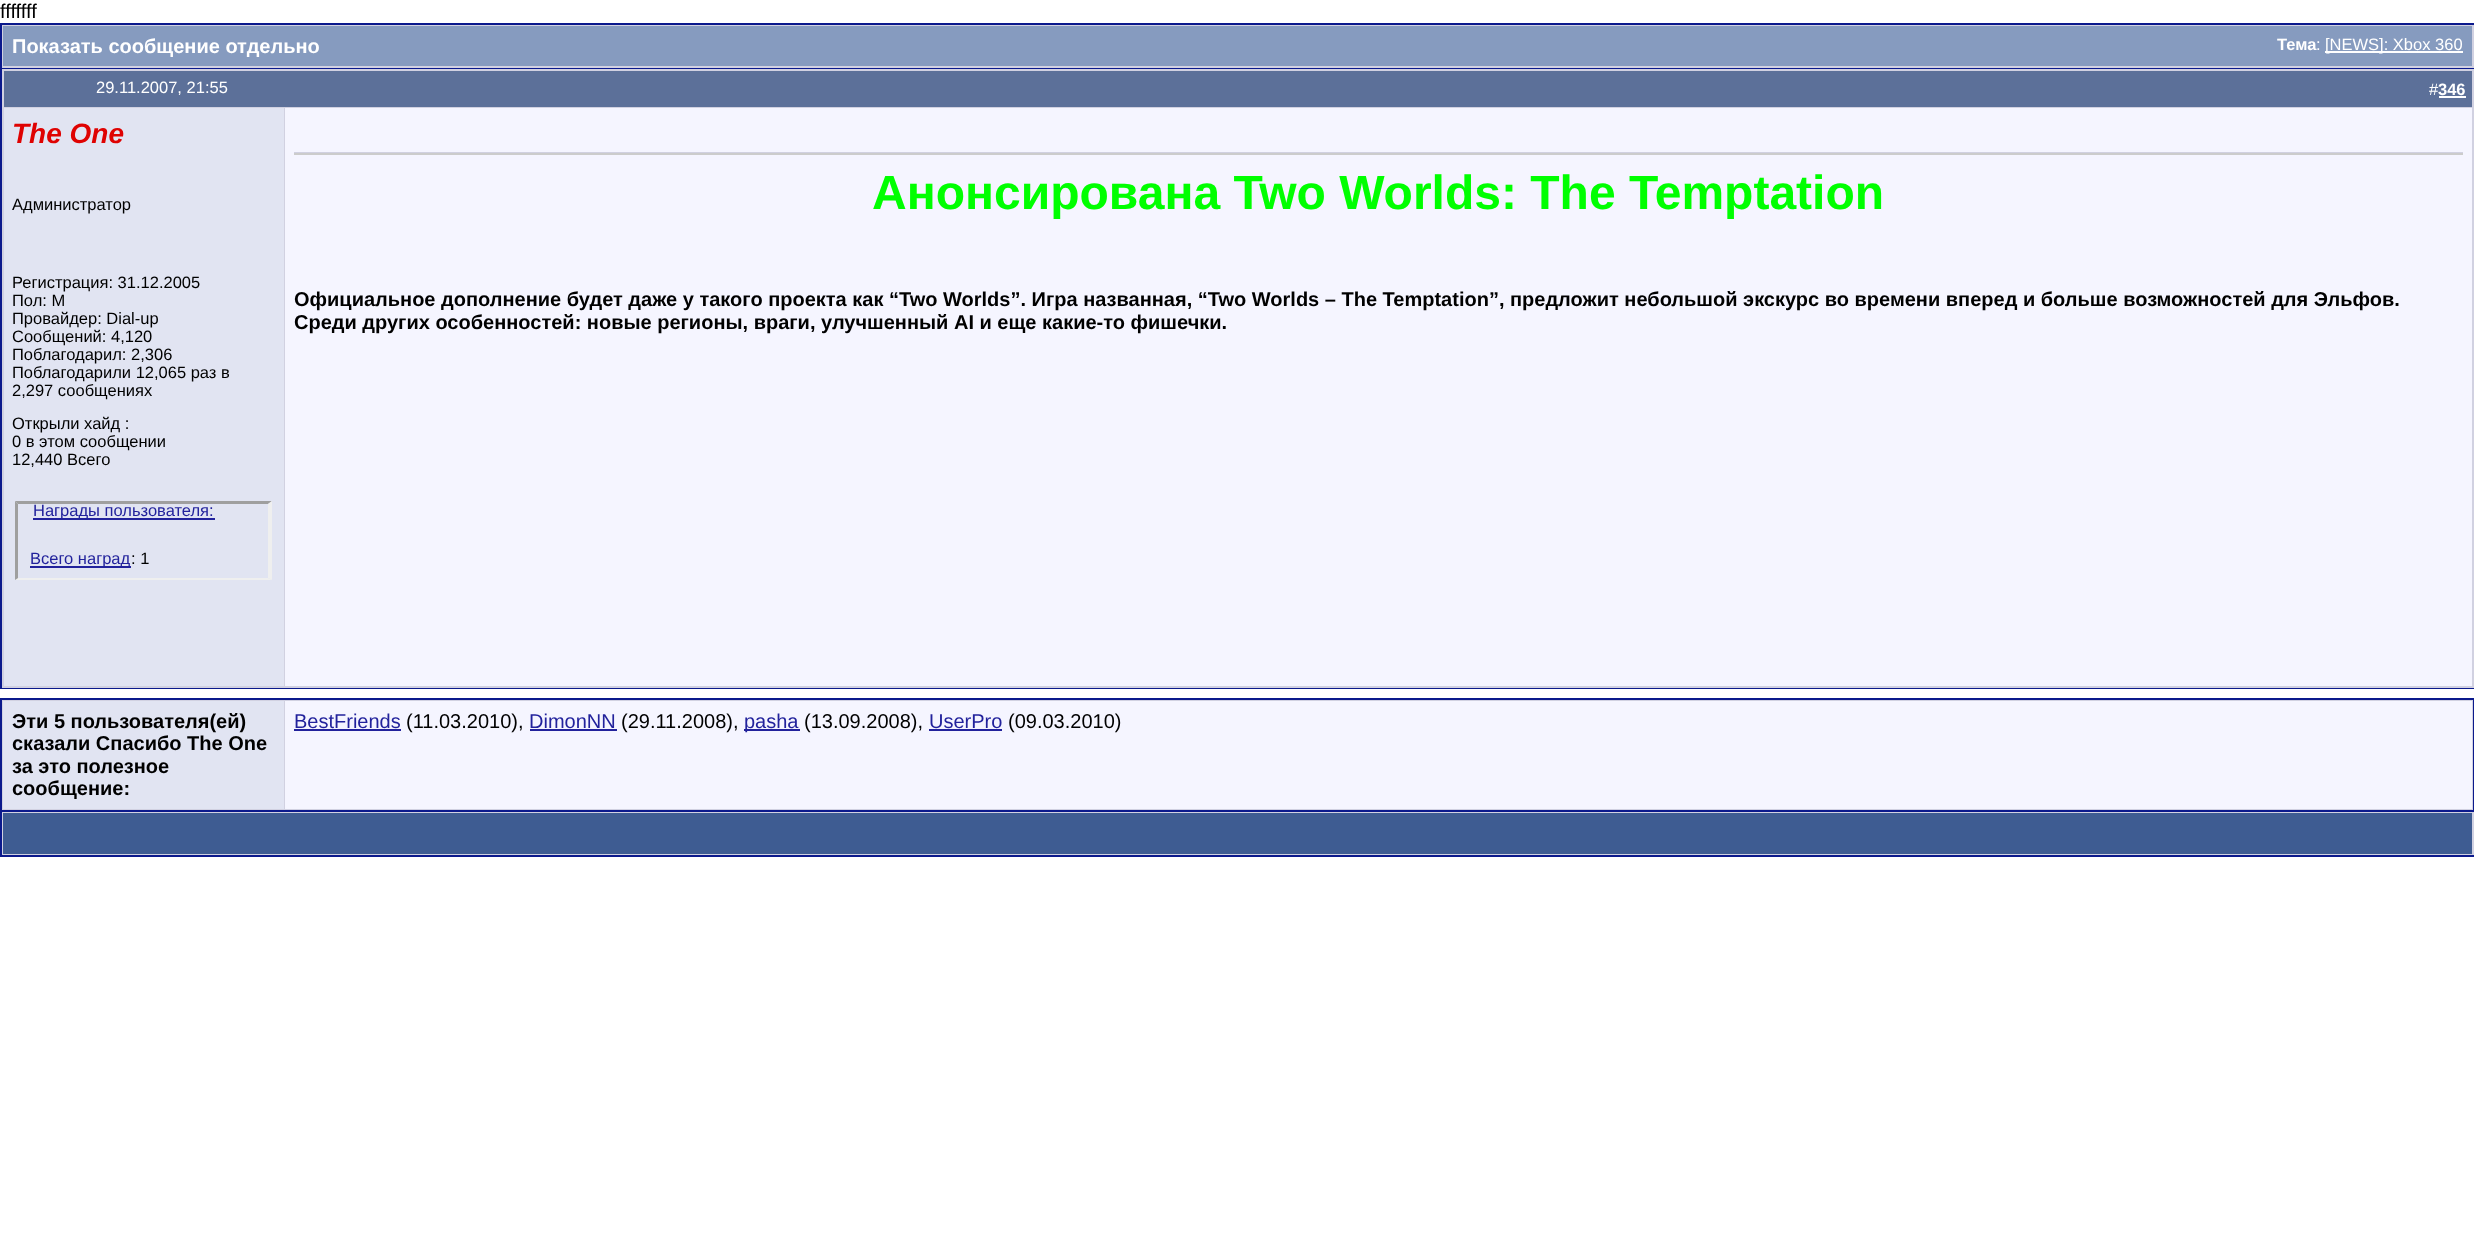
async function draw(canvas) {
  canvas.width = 2474;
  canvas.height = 1241;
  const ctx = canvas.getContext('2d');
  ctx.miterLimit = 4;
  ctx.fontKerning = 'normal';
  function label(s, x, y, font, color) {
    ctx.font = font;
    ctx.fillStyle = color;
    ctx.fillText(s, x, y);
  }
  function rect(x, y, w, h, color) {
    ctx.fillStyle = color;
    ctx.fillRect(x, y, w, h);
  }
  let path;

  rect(0, 0, 2474, 1241, '#fff');
  label('fffffff', 0, 18, '20px Liberation Sans', '#000');
  rect(2, 25, 2472, 43, '#d1d1e1');
  rect(0, 23, 2474, 2, '#0b198c');
  rect(0, 23, 2, 45, '#0b198c');
  rect(3, 26, 2469, 40, '#869bbf');
  label('Показать сообщение отдельно', 12, 53, 'bold 20px Liberation Sans', '#fff');
  label('Тема', 2277, 50, 'bold 16.5px Liberation Sans', '#fff');
  label(':', 2316, 50, '16.5px Liberation Sans', '#fff');
  rect(2325, 51, 138, 2, '#fff');
  label('[NEWS]: Xbox 360', 2325, 50, '16.5px Liberation Sans', '#fff');
  ctx.strokeStyle = '#0b198c';
  ctx.lineWidth = 2;
  ctx.strokeRect(1, 69, 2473, 619);
  rect(4, 71, 2468, 36, '#5c7099');
  rect(2, 69, 2472, 2, '#d1d1e1');
  rect(2, 107, 283, 1, '#d1d1e1');
  rect(2, 69, 2, 575, '#d1d1e1');
  label('29.11.2007, 21:55', 96, 93, '16.5px Liberation Sans', '#fff');
  rect(2472, 69, 2, 618, '#d1d1e1');
  rect(285, 107, 2189, 1, '#d1d1e1');
  label('#', 2429, 95, '16.5px Liberation Sans', '#fff');
  label('346', 2438, 95, 'bold 16.5px Liberation Sans', '#fff');
  rect(2439, 96, 27, 2, '#fff');
  rect(4, 108, 280, 578, '#e1e4f2');
  rect(284, 108, 1, 579, '#d1d1e1');
  label('The One', 12, 143, 'italic bold 28px Liberation Sans', '#df0202');
  label('Администратор', 12, 210, '16.5px Liberation Sans', '#000');
  label('Регистрация: 31.12.2005', 12, 288, '16.5px Liberation Sans', '#000');
  label('Пол: M', 12, 306, '16.5px Liberation Sans', '#000');
  label('Провайдер: Dial-up', 12, 324, '16.5px Liberation Sans', '#000');
  label('Сообщений: 4,120', 12, 342, '16.5px Liberation Sans', '#000');
  label('Поблагодарил: 2,306', 12, 360, '16.5px Liberation Sans', '#000');
  label('Поблагодарили 12,065 раз в', 12, 378, '16.5px Liberation Sans', '#000');
  label('2,297 сообщениях', 12, 396, '16.5px Liberation Sans', '#000');
  label('Открыли хайд :', 12, 429, '16.5px Liberation Sans', '#000');
  label('0 в этом сообщении', 12, 447, '16.5px Liberation Sans', '#000');
  label('12,440 Всего', 12, 465, '16.5px Liberation Sans', '#000');
  ctx.fillStyle = '#9f9f9f';
  path = new Path2D('M15 501H272L268 504H18Z');
  ctx.fill(path);
  ctx.fillStyle = '#efefef';
  path = new Path2D('M272 501V580L268 578V504Z');
  ctx.fill(path);
  path = new Path2D('M272 580H15L18 578H268Z');
  ctx.fill(path);
  ctx.fillStyle = '#9f9f9f';
  path = new Path2D('M15 580V501L18 504V578Z');
  ctx.fill(path);
  rect(33, 518, 182, 2, '#22229c');
  label('Награды пользователя:', 33, 516, '16.5px Liberation Sans', '#22229c');
  rect(30, 566, 101, 2, '#22229c');
  label('Всего наград', 30, 564, '16.5px Liberation Sans', '#22229c');
  label(': 1', 131, 564, '16.5px Liberation Sans', '#000');
  rect(285, 108, 2187, 578, '#f5f5ff');
  rect(294, 152, 2169, 1, '#d1d1e1');
  rect(294, 153, 2169, 2, '#ccc');
  label('Анонсирована Two Worlds: The Temptation', 872, 209, 'bold 48px Liberation Sans', '#0f0');
  label('Официальное дополнение будет даже у такого проекта как “Two Worlds”. Игра названная, “Two Worlds – The Temptation”, предложит небольшой экскурс во времени вперед и больше возможностей для Эльфов.', 294, 306, 'bold 20px Liberation Sans', '#000');
  label('Среди других особенностей: новые регионы, враги, улучшенный AI и еще какие-то фишечки.', 294, 329, 'bold 20px Liberation Sans', '#000');
  rect(2, 686, 2472, 2, '#d1d1e1');
  rect(2, 644, 2, 43, '#d1d1e1');
  ctx.beginPath();
  ctx.rect(1, 699, 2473, 112);
  ctx.fill();
  ctx.stroke();
  rect(3, 701, 281, 108, '#e1e4f2');
  label('Эти 5 пользователя(ей)', 12, 728, 'bold 20px Liberation Sans', '#000');
  label('сказали Спасибо The One', 12, 750, 'bold 20px Liberation Sans', '#000');
  label('за это полезное', 12, 773, 'bold 20px Liberation Sans', '#000');
  label('сообщение:', 12, 795, 'bold 20px Liberation Sans', '#000');
  rect(285, 701, 2187, 108, '#f5f5ff');
  label('BestFriends', 294, 728, '20px Liberation Sans', '#22229c');
  rect(294, 729, 107, 2, '#22229c');
  label('(11.03.2010),', 406, 728, '20px Liberation Sans', '#000');
  label('DimonNN', 529, 728, '20px Liberation Sans', '#22229c');
  rect(530, 729, 87, 2, '#22229c');
  label('(29.11.2008),', 621, 728, '20px Liberation Sans', '#000');
  rect(744, 729, 56, 2, '#22229c');
  label('pasha', 744, 728, '20px Liberation Sans', '#22229c');
  label('(13.09.2008),', 804, 728, '20px Liberation Sans', '#000');
  label('UserPro', 929, 728, '20px Liberation Sans', '#22229c');
  rect(929, 729, 73, 2, '#22229c');
  label('(09.03.2010)', 1008, 728, '20px Liberation Sans', '#000');
  rect(2, 812, 2472, 43, '#d1d1e1');
  rect(0, 855, 2474, 2, '#0b198c');
  rect(0, 812, 2, 45, '#0b198c');
  rect(3, 813, 2469, 41, '#3e5c92');
}

draw(document.querySelector('canvas'));
